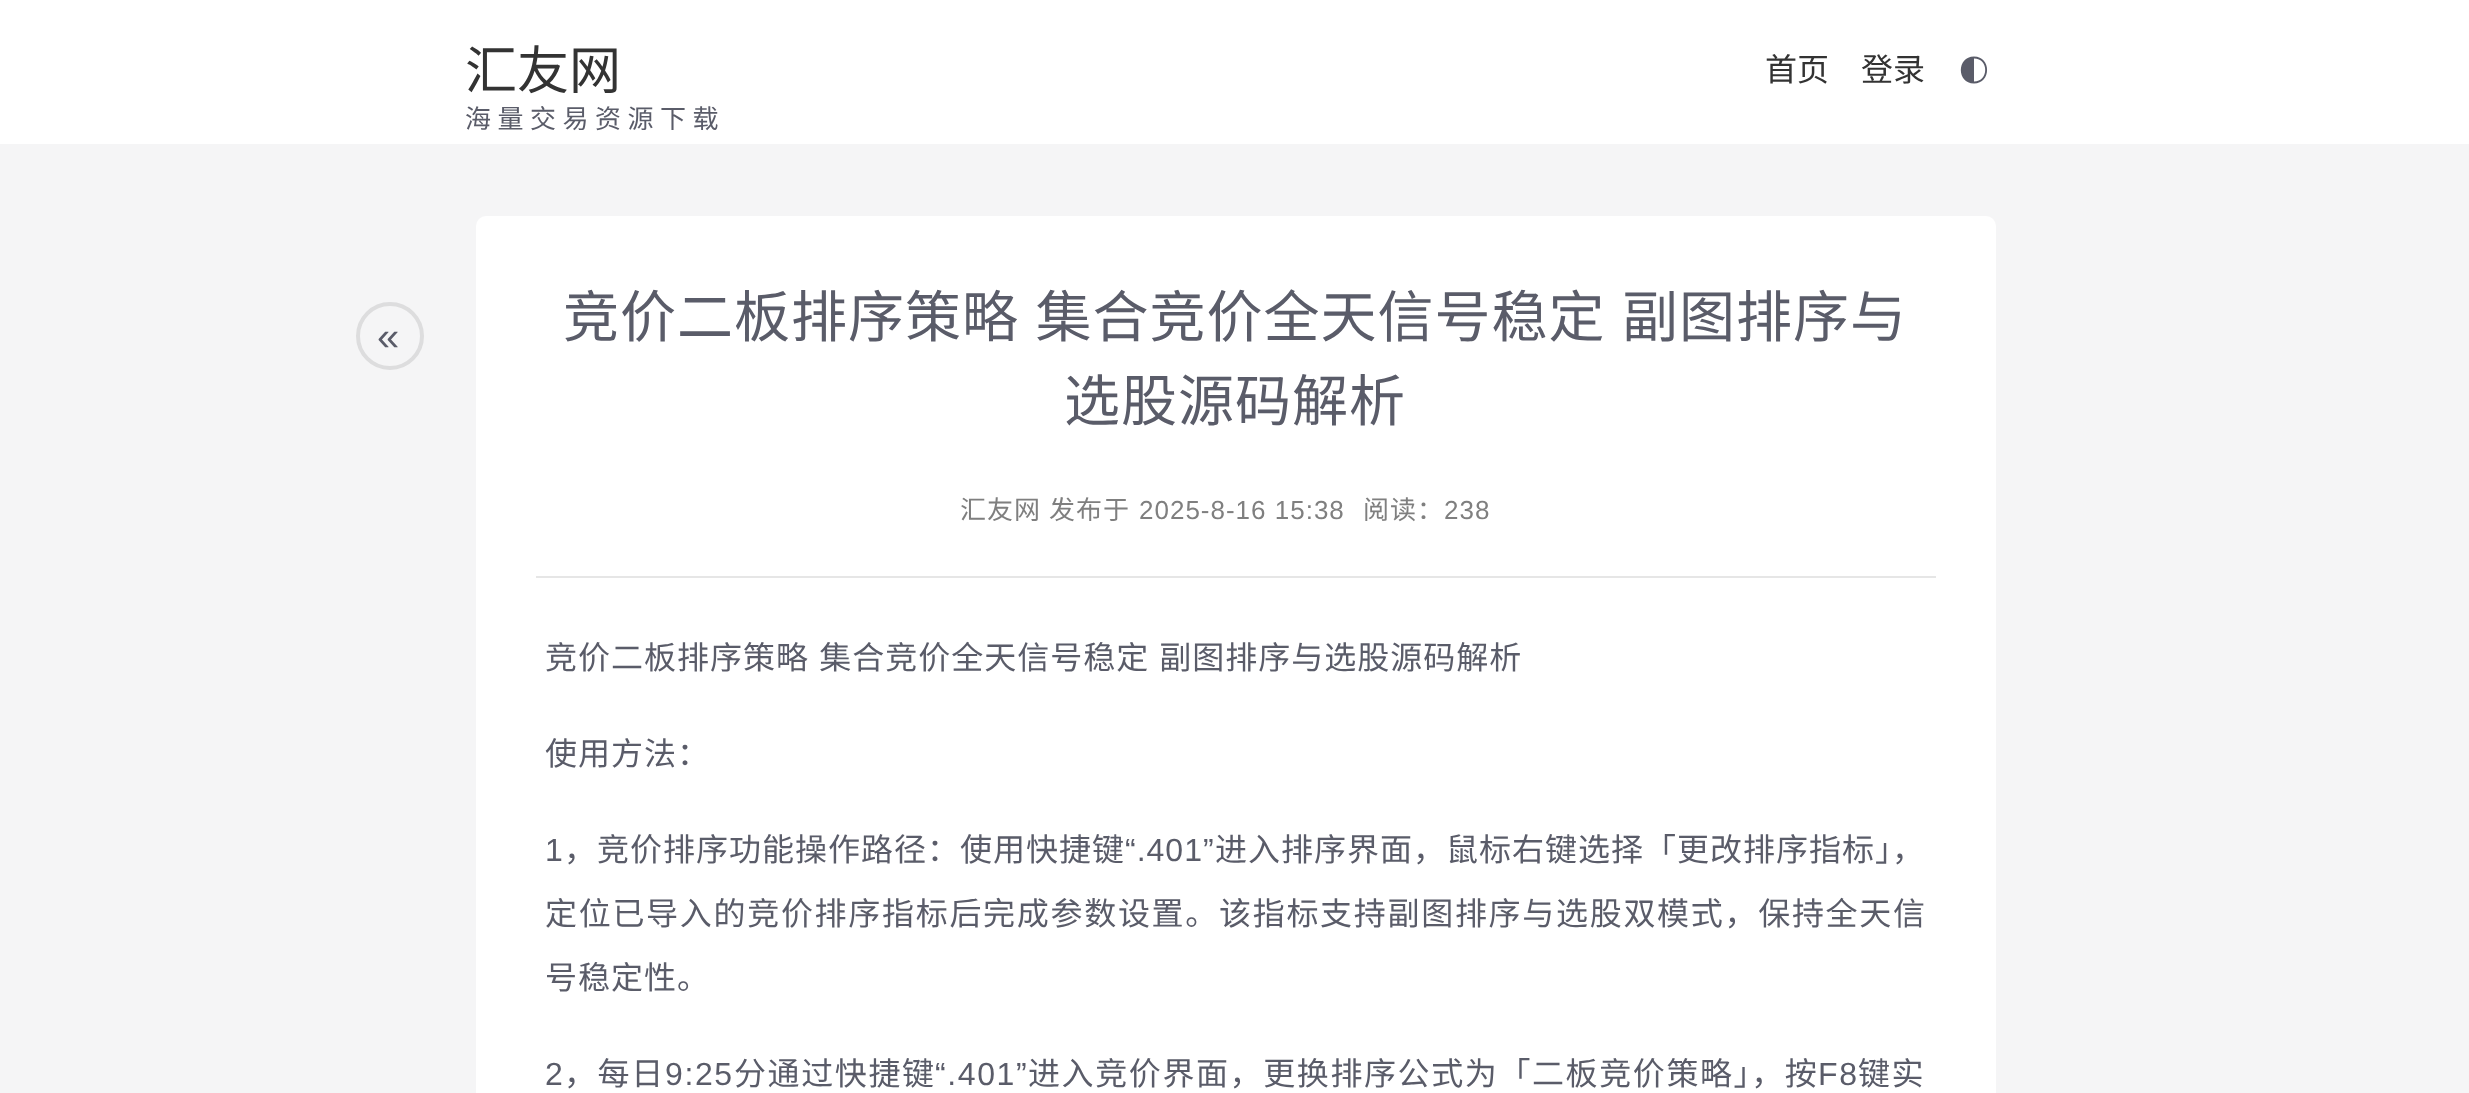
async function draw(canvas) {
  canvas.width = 2469;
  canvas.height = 1093;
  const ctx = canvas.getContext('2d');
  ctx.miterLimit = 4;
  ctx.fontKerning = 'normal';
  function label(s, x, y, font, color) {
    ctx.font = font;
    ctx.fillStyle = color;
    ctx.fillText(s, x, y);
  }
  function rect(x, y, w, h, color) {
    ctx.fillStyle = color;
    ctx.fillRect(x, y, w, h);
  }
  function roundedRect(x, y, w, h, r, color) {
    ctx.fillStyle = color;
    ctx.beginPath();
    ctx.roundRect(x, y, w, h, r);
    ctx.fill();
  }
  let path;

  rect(0, 0, 2469, 1093, '#f5f5f6');
  rect(0, 0, 2469, 144, '#fff');
  label('汇友网', 465, 89, '52px Noto Sans CJK SC', '#333');
  label('首页', 1765, 81, '32px Noto Sans CJK SC', '#333');
  label('登录', 1861, 81, '32px Noto Sans CJK SC', '#333');
  ctx.fillStyle = '#5a5c69';
  path = new Path2D('M1974 83.5C1991.5 83.5 1991.5 56.5 1974 56.5C1956.5 56.5 1956.5 83.5 1974 83.5ZM1974 81.5V58.5C1989 58.5 1989 81.5 1974 81.5Z');
  ctx.fill(path);
  ctx.letterSpacing = '6.5px';
  label('海量交易资源下载', 465, 128, '26px Noto Sans CJK SC', '#5a5c69');
  roundedRect(476, 216, 1520, 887, 10, '#fff');
  ctx.beginPath();
  ctx.arc(390, 336, 32, 0, 2 * Math.PI);
  ctx.strokeStyle = '#ddddde';
  ctx.lineWidth = 4;
  ctx.stroke();
  ctx.letterSpacing = '1px';
  label('«', 377, 350, '40px Liberation Sans', '#5a5c69');
  ctx.wordSpacing = '3px';
  label('竞价二板排序策略 集合竞价全天信号稳定 副图排序与', 563, 337, '56px Noto Sans CJK SC', '#5a5c69');
  ctx.wordSpacing = '0px';
  label('选股源码解析', 1064, 421, '56px Noto Sans CJK SC', '#5a5c69');
  label('汇友网', 960, 519, '26px Noto Sans CJK SC', '#7f7f7f');
  label('发布于', 1049, 519, '26px Noto Sans CJK SC', '#7f7f7f');
  label('2025-8-16 15:38', 1139, 519, '26px Liberation Sans', '#7f7f7f');
  label('阅读：', 1363, 519, '26px Noto Sans CJK SC', '#7f7f7f');
  label('238', 1444, 519, '26px Liberation Sans', '#7f7f7f');
  rect(536, 576, 1400, 2, '#e6e6e6');
  ctx.wordSpacing = '2px';
  label('竞价二板排序策略 集合竞价全天信号稳定 副图排序与选股源码解析', 545, 669, '32px Noto Sans CJK SC', '#5a5c69');
  ctx.wordSpacing = '0px';
  label('使用方法：', 545, 765, '32px Noto Sans CJK SC', '#5a5c69');
  label('1', 545, 861, '32px Liberation Sans', '#5a5c69');
  label('，竞价排序功能操作路径：使用快捷键', 564, 861, '32px Noto Sans CJK SC', '#5a5c69');
  label('“.401”', 1125, 861, '32px Liberation Sans', '#5a5c69');
  label('进入排序界面，鼠标右键选择「更改排序指标」，', 1215, 861, '32px Noto Sans CJK SC', '#5a5c69');
  ctx.letterSpacing = '1.7px';
  label('定位已导入的竞价排序指标后完成参数设置。该指标支持副图排序与选股双模式，保持全天信', 545, 925, '32px Noto Sans CJK SC', '#5a5c69');
  ctx.letterSpacing = '1px';
  label('号稳定性。', 545, 989, '32px Noto Sans CJK SC', '#5a5c69');
  ctx.letterSpacing = '1.6px';
  label('2', 545, 1085, '32px Liberation Sans', '#5a5c69');
  label('，每日', 564, 1085, '32px Noto Sans CJK SC', '#5a5c69');
  label('9:25', 665, 1085, '32px Liberation Sans', '#5a5c69');
  label('分通过快捷键', 734, 1085, '32px Noto Sans CJK SC', '#5a5c69');
  label('“.401”', 935, 1085, '32px Liberation Sans', '#5a5c69');
  label('进入竞价界面，更换排序公式为「二板竞价策略」，按', 1028, 1085, '32px Noto Sans CJK SC', '#5a5c69');
  label('F8', 1818, 1085, '32px Liberation Sans', '#5a5c69');
  label('键实', 1858, 1085, '32px Noto Sans CJK SC', '#5a5c69');
}

draw(document.querySelector('canvas'));
